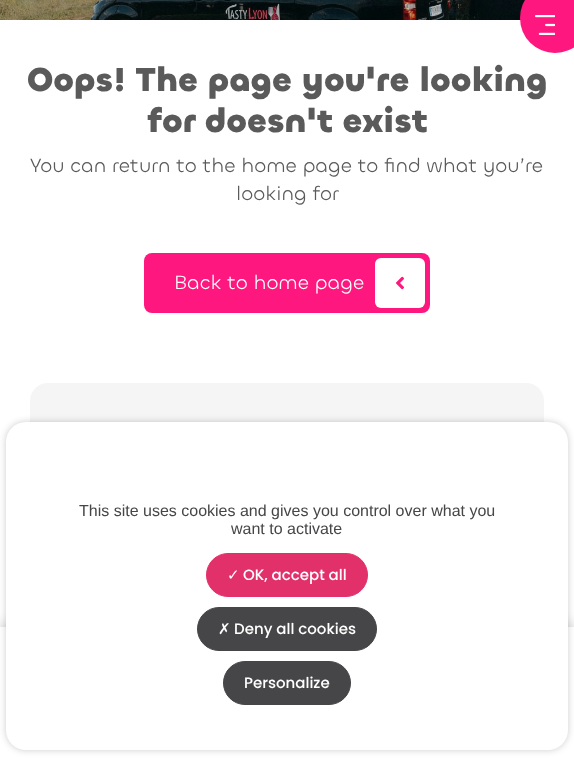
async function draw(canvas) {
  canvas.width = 574;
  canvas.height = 758;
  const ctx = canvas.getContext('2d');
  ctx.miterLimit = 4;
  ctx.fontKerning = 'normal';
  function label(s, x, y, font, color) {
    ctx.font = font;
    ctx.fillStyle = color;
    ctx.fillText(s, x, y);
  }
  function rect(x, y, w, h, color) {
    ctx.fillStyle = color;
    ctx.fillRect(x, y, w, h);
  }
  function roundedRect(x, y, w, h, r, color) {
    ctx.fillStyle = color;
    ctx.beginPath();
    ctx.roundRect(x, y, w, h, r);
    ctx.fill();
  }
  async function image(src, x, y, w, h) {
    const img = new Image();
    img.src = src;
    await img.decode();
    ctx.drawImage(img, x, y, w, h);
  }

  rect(0, 0, 574, 758, '#fff');
  await image('assets/img2.png', 0, 0, 525, 20);
  ctx.fillStyle = '#fd177e';
  ctx.beginPath();
  ctx.arc(555, 18, 35, 0, 2 * Math.PI);
  ctx.fill();
  await image('assets/img1.png', 535, 15, 20, 20);
  label('Oops! The page you\'re looking', 27, 91, 'bold 34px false', '#5a5a5a');
  label('for doesn\'t exist', 147, 132, 'bold 34px false', '#5a5a5a');
  label('You can return to the home page to find what you’re', 30, 172, '20px false', '#5a5a5a');
  label('looking for', 236, 200, '20px false', '#5a5a5a');
  roundedRect(144, 253, 286, 60, 8, '#fd177e');
  label('Back to home page', 174, 289, '20px false', '#fff');
  roundedRect(375, 258, 50, 50, 6, '#fff');
  await image('assets/img3.png', 396, 276, 8, 14);
  roundedRect(30, 383, 514, 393, 18, '#f5f5f5');
  ctx.fillStyle = '#00000033';
  ctx.filter = 'blur(7px)';
  ctx.beginPath();
  ctx.rect(0, 625, 574, 131);
  ctx.fill();
  ctx.filter = 'none';
  rect(0, 627, 574, 131, '#fff');
  ctx.fillStyle = '#00000033';
  ctx.filter = 'blur(3.5px)';
  ctx.beginPath();
  ctx.roundRect(6, 422, 562, 328, 20);
  ctx.fill();
  ctx.filter = 'none';
  roundedRect(6, 422, 562, 328, 20, '#fff');
  label('This site uses cookies and gives you control over what you', 79, 516, '16px Liberation Sans', '#464648');
  label('want to activate', 231, 534, '16px Liberation Sans', '#464648');
  ctx.fillStyle = '#e2306b';
  ctx.beginPath();
  ctx.roundRect(206.5, 553.5, 161, 43, 21.5);
  ctx.fill();
  ctx.strokeStyle = '#e2306b';
  ctx.stroke();
  label('✓', 227, 580, '15px DejaVu Sans', '#fff');
  label('OK, accept all', 243, 580, '500 15px Poppins', '#fff');
  ctx.fillStyle = '#464648';
  ctx.beginPath();
  ctx.roundRect(197.5, 607.5, 179, 43, 21.5);
  ctx.fill();
  ctx.strokeStyle = '#464648';
  ctx.stroke();
  label('✗', 218, 634, '15px DejaVu Sans', '#fff');
  label('Deny all cookies', 234, 634, '500 15px Poppins', '#fff');
  ctx.fillStyle = '#464648';
  ctx.beginPath();
  ctx.roundRect(223.5, 661.5, 127, 43, 21.5);
  ctx.fill();
  ctx.stroke();
  label('Personalize', 244, 688, '500 15px Poppins', '#fff');
}

draw(document.querySelector('canvas'));
